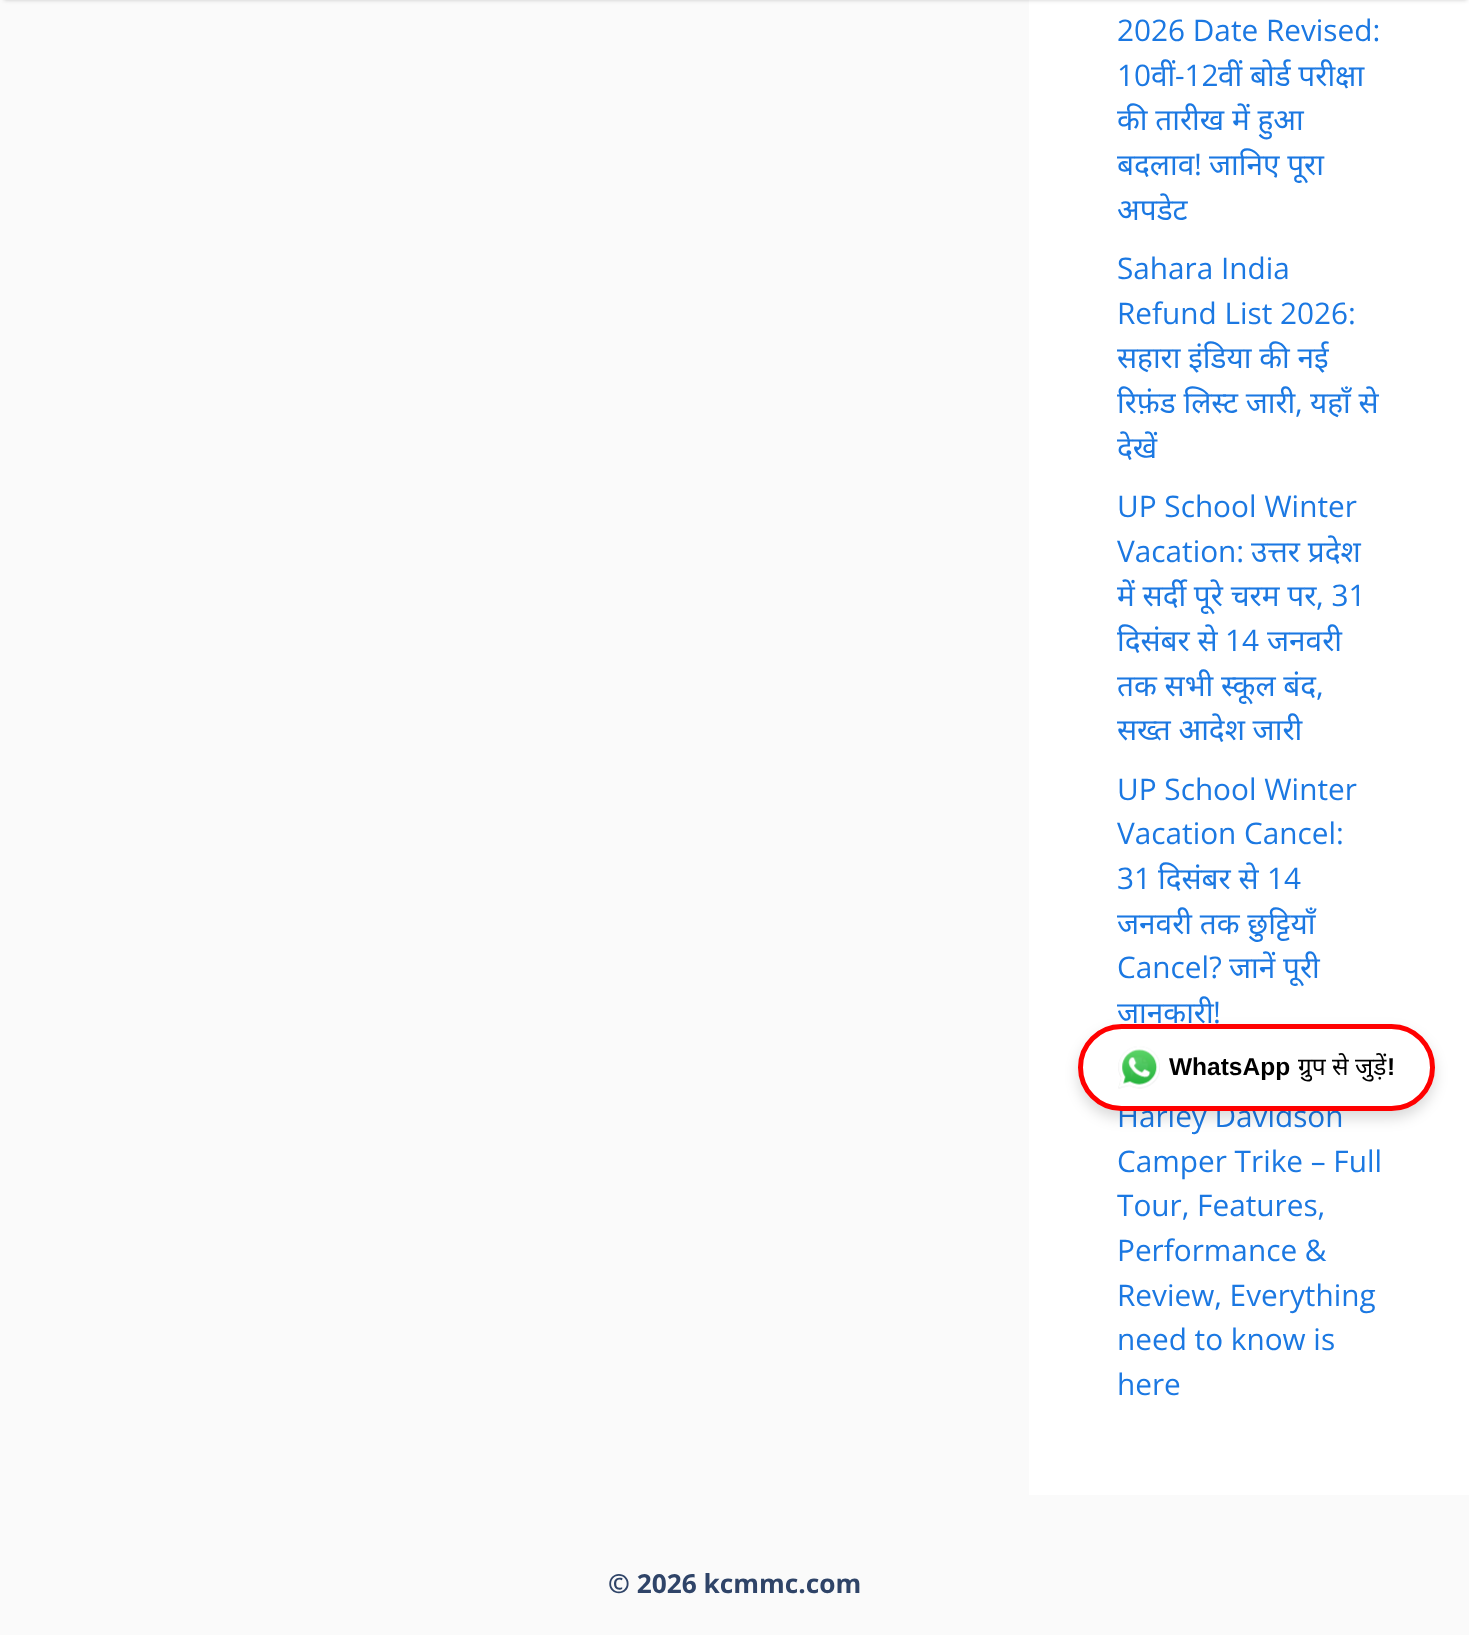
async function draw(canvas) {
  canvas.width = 1469;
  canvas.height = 1635;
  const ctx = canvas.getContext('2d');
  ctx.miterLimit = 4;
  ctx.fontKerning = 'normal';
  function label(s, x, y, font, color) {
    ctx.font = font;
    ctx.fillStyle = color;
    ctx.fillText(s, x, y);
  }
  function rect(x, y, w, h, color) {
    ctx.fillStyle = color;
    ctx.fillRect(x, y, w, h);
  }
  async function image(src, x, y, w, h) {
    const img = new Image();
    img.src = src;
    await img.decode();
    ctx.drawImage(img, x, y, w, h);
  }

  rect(0, 0, 1469, 1635, '#fafafa');
  rect(1029, 0, 440, 1495, '#fff');
  ctx.fillStyle = '#00000033';
  ctx.filter = 'blur(2px)';
  ctx.beginPath();
  ctx.rect(4, -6, 1463, 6);
  ctx.fill();
  ctx.filter = 'none';
  label('2026 Date Revised:', 1117, 41, '29.75px Open Sans', '#1b78e2');
  label('10', 1117, 86, '29.75px Open Sans', '#1b78e2');
  label('वीं', 1151, 86, '29.75px Noto Sans', '#1b78e2');
  label('-12', 1175, 86, '29.75px Open Sans', '#1b78e2');
  label('वीं बोर्ड परीक्षा', 1218, 86, '29.75px Noto Sans', '#1b78e2');
  label('की तारीख में हुआ', 1117, 130, '29.75px Noto Sans', '#1b78e2');
  label('बदलाव', 1117, 175, '29.75px Noto Sans', '#1b78e2');
  label('!', 1194, 175, '29.75px Open Sans', '#1b78e2');
  label('जानिए पूरा', 1209, 175, '29.75px Noto Sans', '#1b78e2');
  label('अपडेट', 1117, 220, '29.75px Noto Sans', '#1b78e2');
  label('Sahara India', 1117, 279, '29.75px Open Sans', '#1b78e2');
  label('Refund List 2026:', 1117, 324, '29.75px Open Sans', '#1b78e2');
  label('सहारा इंडिया की नई', 1117, 368, '29.75px Noto Sans', '#1b78e2');
  label('रिफ़ंड लिस्ट जारी', 1117, 413, '29.75px Noto Sans', '#1b78e2');
  label(',', 1295, 413, '29.75px Open Sans', '#1b78e2');
  label('यहाँ से', 1310, 413, '29.75px Noto Sans', '#1b78e2');
  label('देखें', 1117, 458, '29.75px Noto Sans', '#1b78e2');
  label('UP School Winter', 1117, 517, '29.75px Open Sans', '#1b78e2');
  label('Vacation:', 1117, 562, '29.75px Open Sans', '#1b78e2');
  label('उत्तर प्रदेश', 1251, 562, '29.75px Noto Sans', '#1b78e2');
  label('में सर्दी पूरे चरम पर', 1117, 606, '29.75px Noto Sans', '#1b78e2');
  label(', 31', 1316, 606, '29.75px Open Sans', '#1b78e2');
  label('दिसंबर से', 1117, 651, '29.75px Noto Sans', '#1b78e2');
  label('14', 1225, 651, '29.75px Open Sans', '#1b78e2');
  label('जनवरी', 1267, 651, '29.75px Noto Sans', '#1b78e2');
  label('तक सभी स्कूल बंद', 1117, 696, '29.75px Noto Sans', '#1b78e2');
  label(',', 1316, 696, '29.75px Open Sans', '#1b78e2');
  label('सख्त आदेश जारी', 1117, 740, '29.75px Noto Sans', '#1b78e2');
  label('UP School Winter', 1117, 800, '29.75px Open Sans', '#1b78e2');
  label('Vacation Cancel:', 1117, 844, '29.75px Open Sans', '#1b78e2');
  label('31', 1117, 889, '29.75px Open Sans', '#1b78e2');
  label('दिसंबर से', 1158, 889, '29.75px Noto Sans', '#1b78e2');
  label('14', 1267, 889, '29.75px Open Sans', '#1b78e2');
  label('जनवरी तक छुट्टियाँ', 1117, 934, '29.75px Noto Sans', '#1b78e2');
  label('Cancel?', 1117, 978, '29.75px Open Sans', '#1b78e2');
  label('जानें पूरी', 1229, 978, '29.75px Noto Sans', '#1b78e2');
  label('जानकारी', 1117, 1023, '29.75px Noto Sans', '#1b78e2');
  label('!', 1213, 1023, '29.75px Open Sans', '#1b78e2');
  label('Harley Davidson', 1117, 1127, '29.75px Open Sans', '#1b78e2');
  label('Camper Trike – Full', 1117, 1172, '29.75px Open Sans', '#1b78e2');
  label('Tour, Features,', 1117, 1216, '29.75px Open Sans', '#1b78e2');
  label('Performance &', 1117, 1261, '29.75px Open Sans', '#1b78e2');
  label('Review, Everything', 1117, 1306, '29.75px Open Sans', '#1b78e2');
  label('need to know is', 1117, 1350, '29.75px Open Sans', '#1b78e2');
  label('here', 1117, 1395, '29.75px Open Sans', '#1b78e2');
  ctx.fillStyle = '#00000026';
  ctx.filter = 'blur(7px)';
  ctx.beginPath();
  ctx.roundRect(1078, 1031, 357, 87, 43.5);
  ctx.fill();
  ctx.filter = 'none';
  ctx.fillStyle = '#fff';
  ctx.beginPath();
  ctx.roundRect(1080.5, 1026.5, 352, 82, 41);
  ctx.fill();
  ctx.strokeStyle = '#f00';
  ctx.lineWidth = 5;
  ctx.stroke();
  await image('assets/img1.png', 1118, 1046, 42, 43);
  label('WhatsApp', 1169, 1075, 'bold 24.5px Liberation Sans', '#000');
  label('ग्रुप से जुड़ें', 1298, 1075, '24.5px Noto Sans', '#000');
  label('!', 1387, 1075, 'bold 24.5px Liberation Sans', '#000');
  label('© 2026 kcmmc.com', 608, 1593, 'bold 26.25px Open Sans', '#2f4468');
}

draw(document.querySelector('canvas'));
